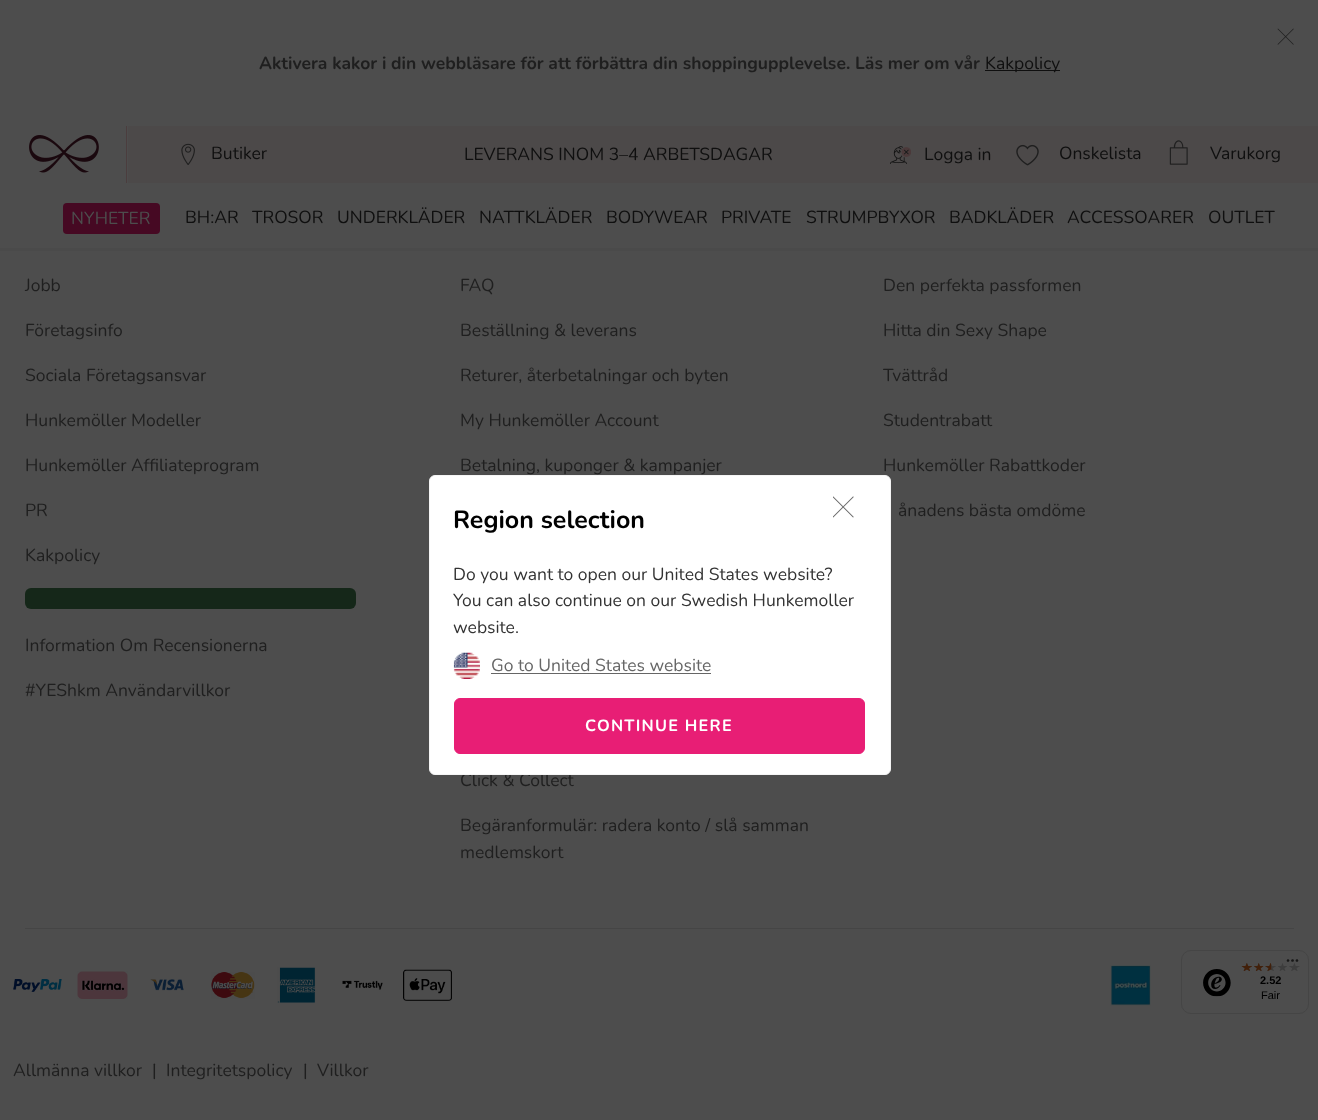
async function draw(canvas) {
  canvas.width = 1318;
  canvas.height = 1120;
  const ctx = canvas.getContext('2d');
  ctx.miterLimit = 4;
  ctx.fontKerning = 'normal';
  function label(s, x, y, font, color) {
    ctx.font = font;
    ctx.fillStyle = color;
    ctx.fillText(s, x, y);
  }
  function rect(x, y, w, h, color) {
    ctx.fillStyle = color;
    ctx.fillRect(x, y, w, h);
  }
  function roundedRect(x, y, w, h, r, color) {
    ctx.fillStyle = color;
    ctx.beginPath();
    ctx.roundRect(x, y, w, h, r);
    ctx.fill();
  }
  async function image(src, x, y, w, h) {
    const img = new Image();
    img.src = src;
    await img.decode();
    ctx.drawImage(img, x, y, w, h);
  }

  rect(0, 0, 1318, 1120, '#4d4d4d');
  rect(0, 248, 1318, 3, '#4a4a4a');
  await image('assets/img1.png', 1277, 28, 17, 17);
  label('Aktivera kakor i din webbläsare för att förbättra din shoppingupplevelse. Läs mer om vår', 259, 69, 'bold 17.5px Nunito', '#1f1f1f');
  rect(985, 70, 75, 1, '#0f0f0f');
  label('Kakpolicy', 985, 69, '17.5px Nunito', '#0f0f0f');
  rect(128, 126, 1190, 57, '#4c4949');
  rect(126, 126, 1, 57, '#4b3d3e');
  await image('assets/img2.png', 29, 135, 70, 38);
  await image('assets/img3.png', 181, 143, 14, 22);
  label('Butiker', 211, 159, '17.5px Nunito', '#0f0f0f');
  await image('assets/img4.png', 890, 146, 21, 18);
  label('Logga in', 924, 160, '17.5px Nunito', '#0f0f0f');
  await image('assets/img5.png', 1016, 144, 23, 22);
  ctx.save();
  ctx.beginPath();
  ctx.rect(1059, 146, 82, 18);
  ctx.clip();
  label('Önskelista', 1059, 159, '17.5px Nunito', '#0f0f0f');
  ctx.restore();
  await image('assets/img6.png', 1169, 140, 19, 25);
  label('Varukorg', 1210, 159, '17.5px Nunito', '#0f0f0f');
  label('LEVERANS INOM 3–4 ARBETSDAGAR', 464, 160, '17.5px Nunito', '#0f0f0f');
  roundedRect(63, 203, 97, 31, 4, '#460923');
  label('NYHETER', 71, 224, '17.5px Nunito', '#4d4d4d');
  label('BH:AR', 185, 223, '17.5px Nunito', '#0f0f0f');
  label('TROSOR', 252, 223, '17.5px Nunito', '#0f0f0f');
  label('UNDERKLÄDER', 337, 223, '17.5px Nunito', '#0f0f0f');
  label('NATTKLÄDER', 479, 223, '17.5px Nunito', '#0f0f0f');
  label('BODYWEAR', 606, 223, '17.5px Nunito', '#0f0f0f');
  label('PRIVATE', 721, 223, '17.5px Nunito', '#0f0f0f');
  label('STRUMPBYXOR', 806, 223, '17.5px Nunito', '#0f0f0f');
  label('BADKLÄDER', 949, 223, '17.5px Nunito', '#0f0f0f');
  label('ACCESSOARER', 1067, 223, '17.5px Nunito', '#0f0f0f');
  label('OUTLET', 1208, 223, '17.5px Nunito', '#0f0f0f');
  label('Jobb', 25, 291, '17.5px Nunito', '#1f1f1f');
  label('Företagsinfo', 25, 336, '17.5px Nunito', '#1f1f1f');
  label('Sociala Företagsansvar', 25, 381, '17.5px Nunito', '#1f1f1f');
  label('Hunkemöller Modeller', 25, 426, '17.5px Nunito', '#1f1f1f');
  label('Hunkemöller Affiliateprogram', 25, 471, '17.5px Nunito', '#1f1f1f');
  label('PR', 25, 516, '17.5px Nunito', '#1f1f1f');
  label('Kakpolicy', 25, 561, '17.5px Nunito', '#1f1f1f');
  roundedRect(25, 588, 331, 21, 6, '#152719');
  label('Information Om Recensionerna', 25, 651, '17.5px Nunito', '#1f1f1f');
  label('#YEShkm Användarvillkor', 25, 696, '17.5px Nunito', '#1f1f1f');
  label('FAQ', 460, 291, '17.5px Nunito', '#1f1f1f');
  label('Beställning & leverans', 460, 336, '17.5px Nunito', '#1f1f1f');
  label('Returer, återbetalningar och byten', 460, 381, '17.5px Nunito', '#1f1f1f');
  label('My Hunkemöller Account', 460, 426, '17.5px Nunito', '#1f1f1f');
  label('Betalning, kuponger & kampanjer', 460, 471, '17.5px Nunito', '#1f1f1f');
  label('Click & Collect', 460, 786, '17.5px Nunito', '#1f1f1f');
  label('Begäranformulär: radera konto / slå samman', 460, 831, '17.5px Nunito', '#1f1f1f');
  label('medlemskort', 460, 858, '17.5px Nunito', '#1f1f1f');
  label('Den perfekta passformen', 883, 291, '17.5px Nunito', '#1f1f1f');
  label('Hitta din Sexy Shape', 883, 336, '17.5px Nunito', '#1f1f1f');
  label('Tvättråd', 883, 381, '17.5px Nunito', '#1f1f1f');
  label('Studentrabatt', 883, 426, '17.5px Nunito', '#1f1f1f');
  label('Hunkemöller Rabattkoder', 883, 471, '17.5px Nunito', '#1f1f1f');
  label('ånadens bästa omdöme', 898, 516, '17.5px Nunito', '#1f1f1f');
  rect(25, 928, 1269, 1, '#454545');
  await image('assets/img7.png', 13, 979, 49, 13);
  await image('assets/img8.png', 77, 971, 51, 28);
  await image('assets/img9.png', 150, 979, 34, 12);
  await image('assets/img10.png', 211, 972, 44, 27);
  await image('assets/img11.png', 277, 967, 39, 36);
  await image('assets/img12.png', 342, 980, 41, 10);
  await image('assets/img13.png', 403, 969, 49, 32);
  await image('assets/img14.png', 1110, 965, 41, 41);
  ctx.beginPath();
  ctx.roundRect(1181.5, 950.5, 127, 63, 9.5);
  ctx.strokeStyle = '#454545';
  ctx.stroke();
  await image('assets/img15.png', 1286, 959, 13, 3);
  await image('assets/img16.png', 1203, 969, 28, 28);
  await image('assets/img17.png', 1241, 963, 11, 8);
  await image('assets/img18.png', 1254, 963, 10, 8);
  await image('assets/img19.png', 1265, 963, 11, 8);
  await image('assets/img20.png', 1278, 963, 9, 8);
  await image('assets/img21.png', 1289, 963, 11, 8);
  await image('assets/img22.png', 1241, 963, 11, 8);
  await image('assets/img23.png', 1254, 963, 10, 8);
  await image('assets/img24.png', 1265, 963, 7, 9);
  label('2.52', 1260, 984, 'bold 11px Liberation Sans', '#000');
  label('Fair', 1261, 999, '11px Liberation Sans', '#000');
  label('Allmänna villkor', 13, 1076, '17.5px Nunito', '#1f1f1f');
  label('|', 152, 1076, '17.5px Nunito', '#1f1f1f');
  label('Integritetspolicy', 166, 1076, '17.5px Nunito', '#1f1f1f');
  label('|', 303, 1076, '17.5px Nunito', '#1f1f1f');
  label('Villkor', 317, 1076, '17.5px Nunito', '#1f1f1f');
  ctx.fillStyle = '#fff';
  ctx.beginPath();
  ctx.roundRect(429.5, 475.5, 461, 299, 5.5);
  ctx.fill();
  ctx.strokeStyle = '#f5f5f5';
  ctx.stroke();
  await image('assets/img25.png', 833, 496, 21, 22);
  label('Region selection', 453, 528, 'bold 25px Nunito', '#000');
  label('Do you want to open our United States website?', 453, 580, '17.5px Nunito', '#333');
  label('You can also continue on our Swedish Hunkemoller', 453, 606, '17.5px Nunito', '#333');
  label('website.', 453, 633, '17.5px Nunito', '#333');
  await image('assets/img26.png', 453, 652, 27, 27);
  label('Go to United States website', 491, 671, '17.5px Nunito', '#666');
  rect(491, 673, 220, 1, '#666');
  ctx.fillStyle = '#e81e75';
  ctx.beginPath();
  ctx.roundRect(454.5, 698.5, 410, 55, 5.5);
  ctx.fill();
  ctx.strokeStyle = '#e81e75';
  ctx.stroke();
  ctx.letterSpacing = '1.25px';
  label('CONTINUE HERE', 585, 731, 'bold 16.25px Nunito', '#fff');
}

draw(document.querySelector('canvas'));
